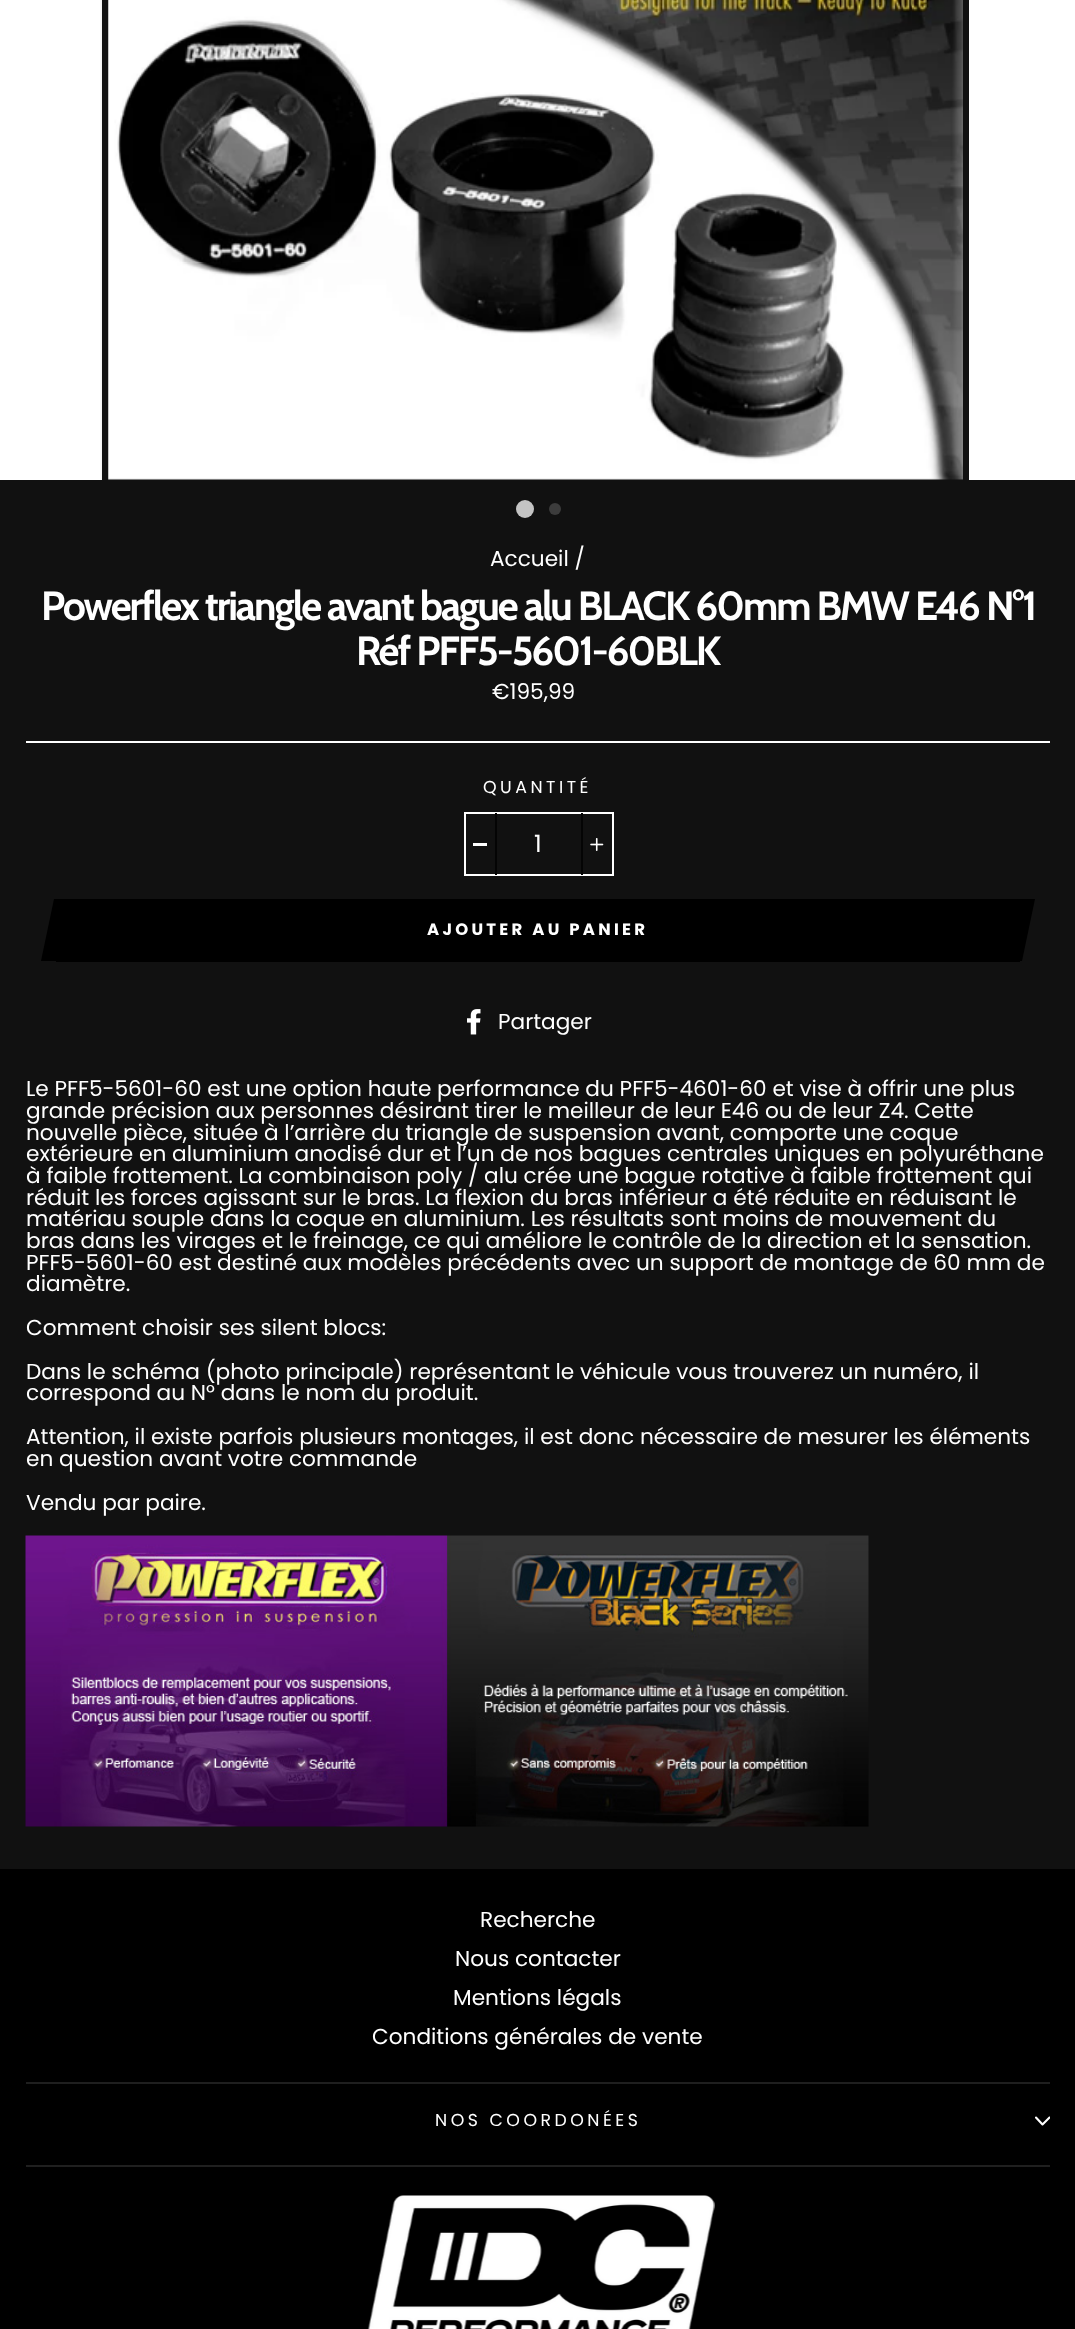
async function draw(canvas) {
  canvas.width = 1075;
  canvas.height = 2329;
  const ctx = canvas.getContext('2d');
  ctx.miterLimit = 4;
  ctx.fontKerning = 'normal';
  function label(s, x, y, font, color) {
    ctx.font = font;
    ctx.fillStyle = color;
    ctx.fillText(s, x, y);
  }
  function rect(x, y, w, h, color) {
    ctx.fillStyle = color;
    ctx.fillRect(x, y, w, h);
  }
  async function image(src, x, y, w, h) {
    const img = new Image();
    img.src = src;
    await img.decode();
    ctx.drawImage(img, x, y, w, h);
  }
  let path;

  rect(0, 0, 1075, 2329, '#111');
  await image('assets/img1.png', 0, 0, 102, 480);
  await image('assets/img2.png', 108, 0, 855, 480);
  rect(969, 0, 106, 480, '#fff');
  ctx.fillStyle = '#c4c4c4';
  ctx.beginPath();
  ctx.arc(525, 509, 9, 0, 2 * Math.PI);
  ctx.fill();
  ctx.fillStyle = '#3c3c3c';
  ctx.beginPath();
  ctx.arc(555, 509, 6, 0, 2 * Math.PI);
  ctx.fill();
  label('Accueil /', 490, 566, '21.65px Poppins', '#fff');
  ctx.letterSpacing = '-2.03px';
  label('Powerflex triangle avant bague alu BLACK 60mm BMW E46 N°1', 41, 620, 'bold 40.6px Cabin', '#fff');
  label('Réf PFF5-5601-60BLK', 356, 665, 'bold 40.6px Cabin', '#fff');
  ctx.letterSpacing = '0px';
  label('€195,99', 492, 699, '21.65px Poppins', '#fff');
  rect(26, 741, 1024, 2, '#fff');
  ctx.letterSpacing = '3.5px';
  label('QUANTITÉ', 483, 793, '17.3px Poppins', '#fff');
  ctx.strokeStyle = '#fff';
  ctx.lineWidth = 2;
  ctx.strokeRect(465, 813, 148, 62);
  rect(495, 813, 2, 62, '#040404');
  rect(473, 843, 14, 3, '#fff');
  ctx.letterSpacing = '0px';
  label('1', 534, 852, '24px Poppins', '#fff');
  rect(581, 813, 2, 62, '#040404');
  await image('assets/img3.png', 590, 838, 14, 13);
  rect(56, 899, 964, 63, '#000');
  path = new Path2D('M54 899H84L71 961H41Z');
  ctx.fill(path);
  ctx.letterSpacing = '3.25px';
  label('AJOUTER AU PANIER', 427, 935, 'bold 16.5px Poppins', '#fff');
  ctx.fillStyle = '#000';
  path = new Path2D('M1005 899H1035L1022 961H992Z');
  ctx.fill(path);
  await image('assets/img4.png', 467, 1009, 14, 26);
  ctx.letterSpacing = '0px';
  label('Partager', 498, 1029, '21.65px Poppins', '#fff');
  label('Le PFF5-5601-60 est une option haute performance du PFF5-4601-60 et vise à offrir une plus', 26, 1096, '21.65px Poppins', '#fff');
  label('grande précision aux personnes désirant tirer le meilleur de leur E46 ou de leur Z4. Cette', 26, 1118, '21.65px Poppins', '#fff');
  label('nouvelle pièce, située à l’arrière du triangle de suspension avant, comporte une coque', 26, 1140, '21.65px Poppins', '#fff');
  label('extérieure en aluminium anodisé dur et l’un de nos bagues centrales uniques en polyuréthane', 26, 1161, '21.65px Poppins', '#fff');
  label('à faible frottement. La combinaison poly / alu crée une bague rotative à faible frottement qui', 26, 1183, '21.65px Poppins', '#fff');
  label('réduit les forces agissant sur le bras. La flexion du bras inférieur a été réduite en réduisant le', 26, 1205, '21.65px Poppins', '#fff');
  label('matériau souple dans la coque en aluminium. Les résultats sont moins de mouvement du', 26, 1226, '21.65px Poppins', '#fff');
  label('bras dans les virages et le freinage, ce qui améliore le contrôle de la direction et la sensation.', 26, 1248, '21.65px Poppins', '#fff');
  label('PFF5-5601-60 est destiné aux modèles précédents avec un support de montage de 60 mm de', 26, 1270, '21.65px Poppins', '#fff');
  label('diamètre.', 26, 1291, '21.65px Poppins', '#fff');
  label('Comment choisir ses silent blocs:', 26, 1335, '21.65px Poppins', '#fff');
  label('Dans le schéma (photo principale) représentant le véhicule vous trouverez un numéro, il', 26, 1379, '21.65px Poppins', '#fff');
  label('correspond au N° dans le nom du produit.', 26, 1400, '21.65px Poppins', '#fff');
  label('Attention, il existe parfois plusieurs montages, il est donc nécessaire de mesurer les éléments', 26, 1444, '21.65px Poppins', '#fff');
  label('en question avant votre commande', 26, 1466, '21.65px Poppins', '#fff');
  label('Vendu par paire.', 26, 1510, '21.65px Poppins', '#fff');
  await image('assets/img5.png', 25, 1535, 844, 292);
  rect(0, 1869, 1075, 460, '#000');
  label('Recherche', 480, 1927, '21.65px Poppins', '#fff');
  label('Nous contacter', 455, 1966, '21.65px Poppins', '#fff');
  label('Mentions légals', 453, 2005, '21.65px Poppins', '#fff');
  label('Conditions générales de vente', 372, 2044, '21.65px Poppins', '#fff');
  rect(26, 2082, 1024, 2, '#1f1f1f');
  ctx.letterSpacing = '3.5px';
  label('NOS COORDONÉES', 435, 2126, '17.3px Poppins', '#fff');
  ctx.save();
  ctx.beginPath();
  ctx.rect(1035, 2114, 15, 15);
  ctx.clip();
  path = new Path2D('M1036 2117.5L1042.5 2124.5L1049.5 2117.5');
  ctx.lineWidth = 2.1;
  ctx.lineCap = 'round';
  ctx.lineJoin = 'round';
  ctx.stroke(path);
  ctx.restore();
  rect(26, 2165, 1024, 2, '#1f1f1f');
  await image('assets/img6.png', 367, 2195, 348, 134);
}

draw(document.querySelector('canvas'));
